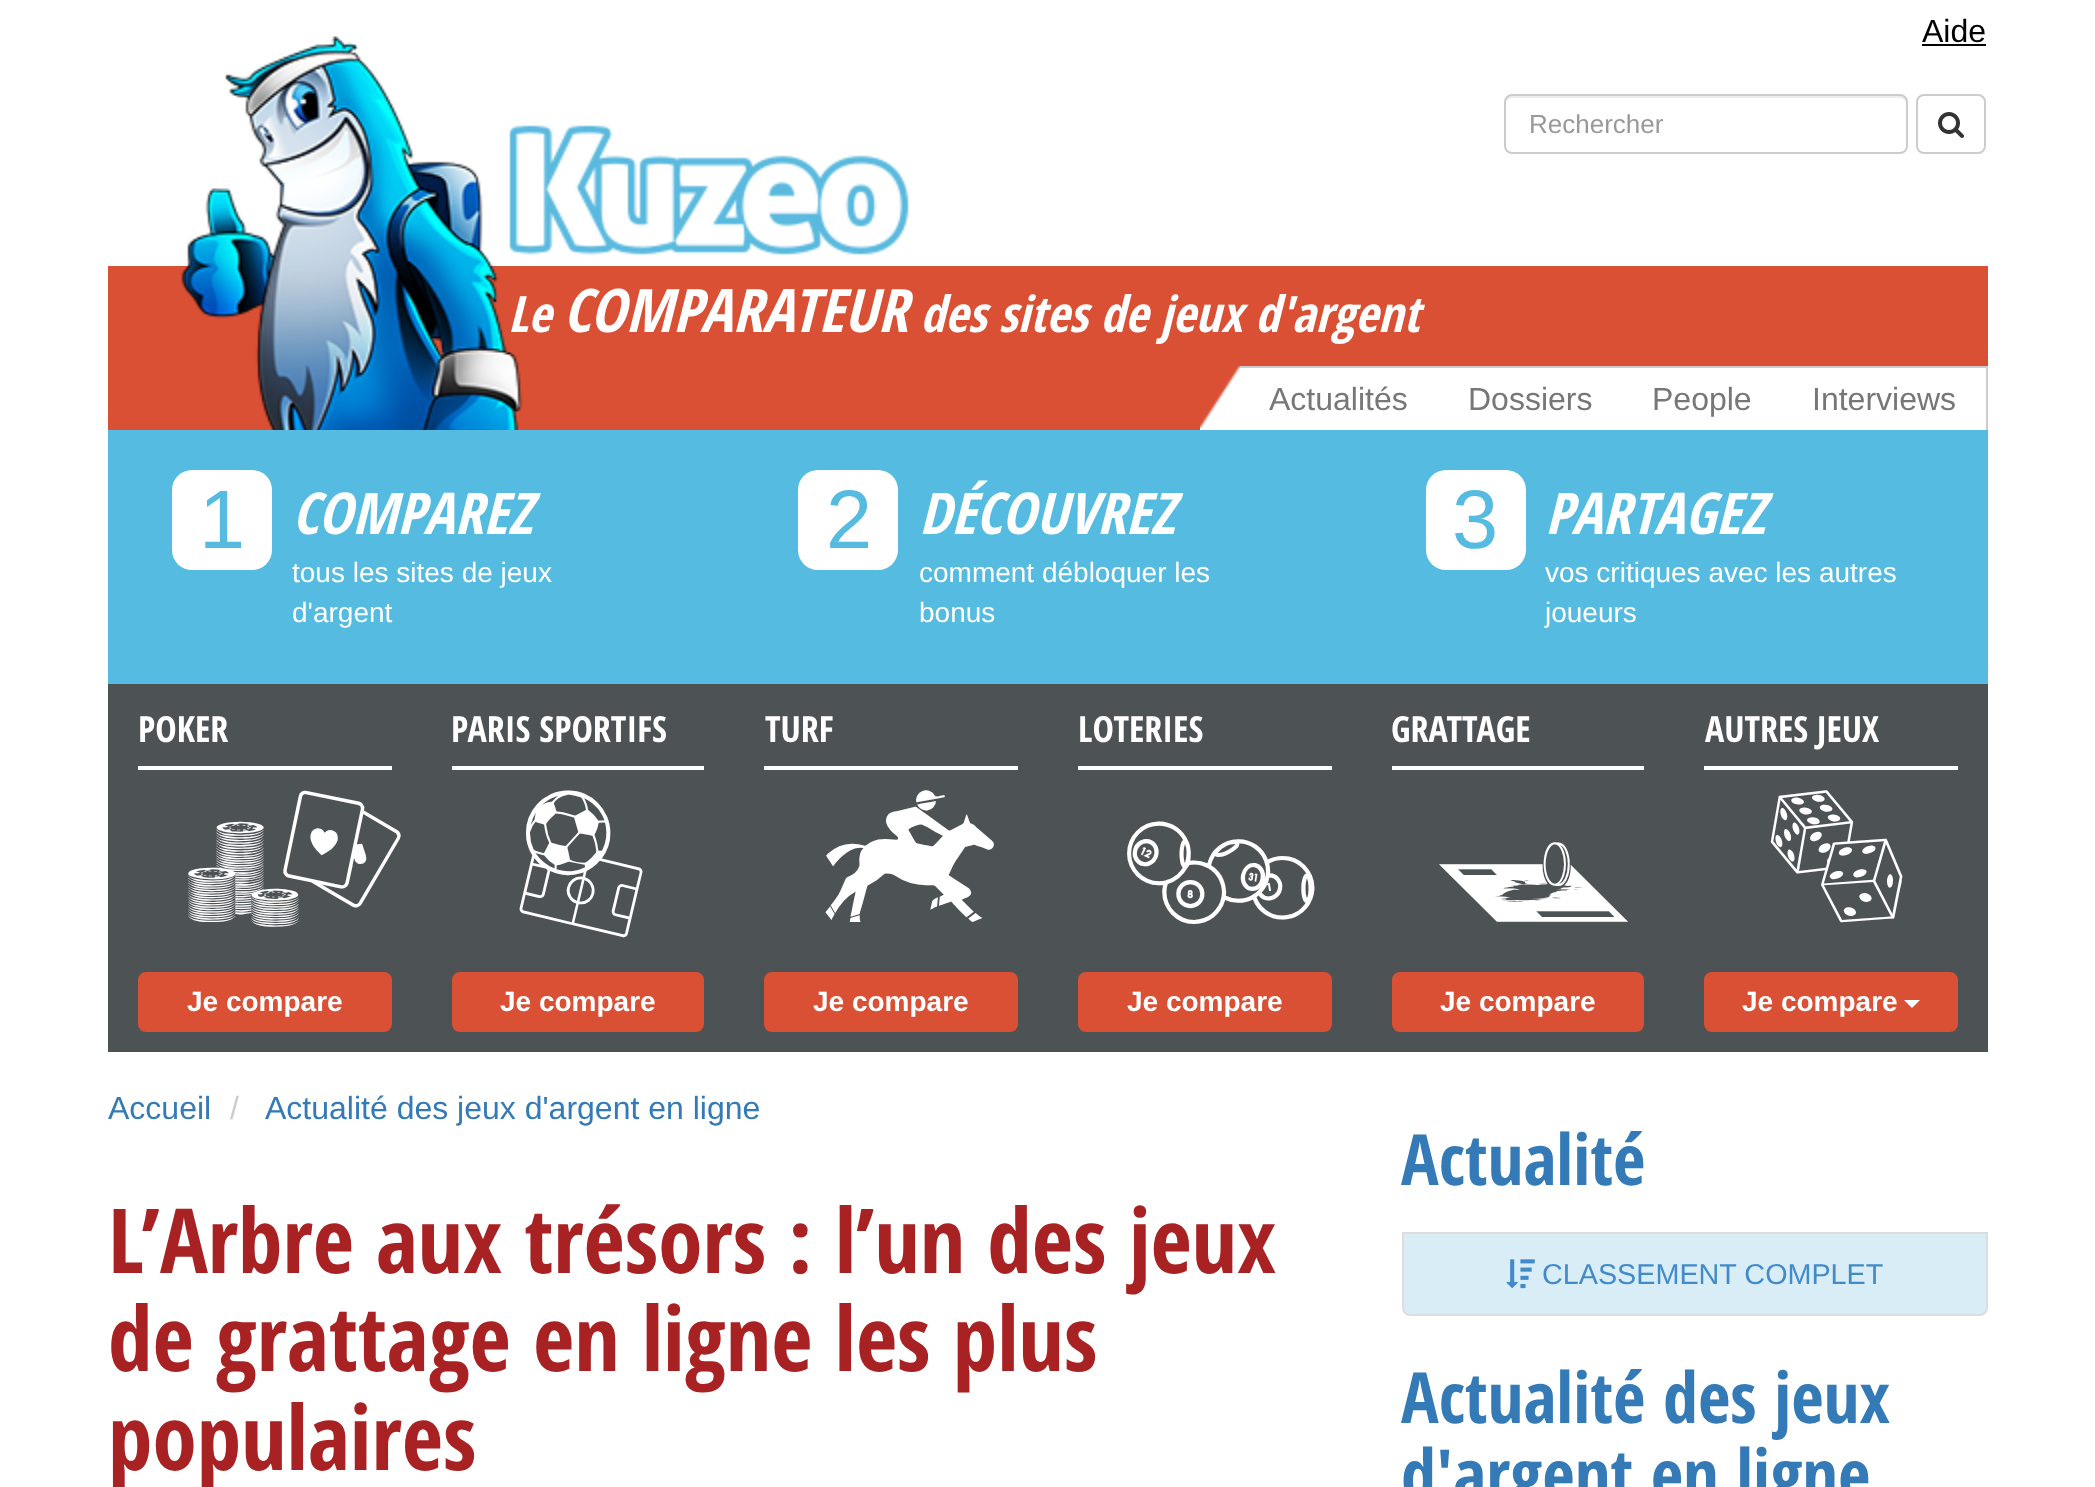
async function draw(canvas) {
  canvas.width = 2095;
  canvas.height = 1487;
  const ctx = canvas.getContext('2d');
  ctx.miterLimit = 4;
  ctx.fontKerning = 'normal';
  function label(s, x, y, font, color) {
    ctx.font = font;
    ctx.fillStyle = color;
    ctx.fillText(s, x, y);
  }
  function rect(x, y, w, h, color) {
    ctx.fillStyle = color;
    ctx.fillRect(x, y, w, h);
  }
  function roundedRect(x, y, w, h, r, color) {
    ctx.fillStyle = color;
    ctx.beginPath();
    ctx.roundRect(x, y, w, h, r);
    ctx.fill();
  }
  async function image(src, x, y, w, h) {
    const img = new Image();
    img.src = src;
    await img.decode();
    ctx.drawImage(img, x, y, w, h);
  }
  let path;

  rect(0, 0, 2095, 1487, '#fff');
  label('Aide', 1922, 42, '32px Liberation Sans', '#000');
  rect(1922, 44, 64, 2, '#000');
  ctx.fillStyle = '#ececec';
  path = new Path2D('M1512 98H1900C1903 98 1906 101 1906 104C1906 100 1905 96 1900 96H1512C1507 96 1506 100 1506 104C1506 101 1509 98 1512 98Z');
  ctx.fill(path);
  ctx.beginPath();
  ctx.roundRect(1505, 95, 402, 58, 7);
  ctx.strokeStyle = '#ccc';
  ctx.lineWidth = 2;
  ctx.stroke();
  label('Rechercher', 1529, 133, '26px Liberation Sans', '#999');
  ctx.beginPath();
  ctx.roundRect(1917, 95, 68, 58, 7);
  ctx.stroke();
  await image('assets/img1.png', 1938, 112, 26, 26);
  rect(108, 266, 1880, 164, '#d95034');
  label('Le', 508, 332, 'italic bold 50px Open Sans Condensed', '#fff');
  await image('assets/img2.png', 181, 36, 342, 394);
  await image('assets/img3.png', 509, 125, 400, 130);
  label('COMPARATEUR', 563, 332, 'italic bold 60px Open Sans Condensed', '#fff');
  label('des sites de jeux d\'argent', 920, 332, 'italic bold 50px Open Sans Condensed', '#fff');
  rect(1200, 368, 786, 62, '#fff');
  rect(1240, 366, 748, 2, '#ccc');
  rect(1986, 366, 2, 64, '#ccc');
  await image('assets/img4.png', 1200, 366, 40, 62);
  label('Actualités', 1269, 410, '32px Liberation Sans', '#777');
  label('Dossiers', 1468, 410, '32px Liberation Sans', '#777');
  label('People', 1652, 410, '32px Liberation Sans', '#777');
  label('Interviews', 1812, 410, '32px Liberation Sans', '#777');
  rect(108, 430, 1880, 254, '#55bbe0');
  roundedRect(172, 470, 100, 100, 20, '#fff');
  label('1', 199, 548, '83px Liberation Sans', '#55bbe0');
  label('COMPAREZ', 292, 534, 'italic bold 57.5px Open Sans Condensed', '#fff');
  label('tous les sites de jeux', 292, 582, '28px Liberation Sans', '#fff');
  label('d\'argent', 292, 622, '28px Liberation Sans', '#fff');
  roundedRect(798, 470, 100, 100, 20, '#fff');
  label('2', 826, 548, '83px Liberation Sans', '#55bbe0');
  label('DÉCOUVREZ', 919, 534, 'italic bold 57.5px Open Sans Condensed', '#fff');
  label('comment débloquer les', 919, 582, '28px Liberation Sans', '#fff');
  label('bonus', 919, 622, '28px Liberation Sans', '#fff');
  roundedRect(1426, 470, 100, 100, 20, '#fff');
  label('3', 1452, 548, '83px Liberation Sans', '#55bbe0');
  label('PARTAGEZ', 1545, 534, 'italic bold 57.5px Open Sans Condensed', '#fff');
  label('vos critiques avec les autres', 1545, 582, '28px Liberation Sans', '#fff');
  label('joueurs', 1545, 622, '28px Liberation Sans', '#fff');
  rect(108, 684, 1880, 368, '#4d5255');
  rect(138, 766, 254, 4, '#fff');
  label('POKER', 138, 742, 'bold 36px Open Sans Condensed', '#fff');
  label('a', 186, 922, '190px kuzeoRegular', '#fff');
  ctx.fillStyle = '#d95034';
  ctx.beginPath();
  ctx.roundRect(139, 973, 252, 58, 7);
  ctx.fill();
  ctx.strokeStyle = '#d95034';
  ctx.stroke();
  label('Je compare', 187, 1011, 'bold 28px Liberation Sans', '#fff');
  rect(452, 766, 252, 4, '#fff');
  label('PARIS SPORTIFS', 451, 742, 'bold 36px Open Sans Condensed', '#fff');
  label('b', 499, 922, '190px kuzeoRegular', '#fff');
  ctx.fillStyle = '#d95034';
  ctx.beginPath();
  ctx.roundRect(453, 973, 250, 58, 7);
  ctx.fill();
  ctx.stroke();
  label('Je compare', 500, 1011, 'bold 28px Liberation Sans', '#fff');
  rect(764, 766, 254, 4, '#fff');
  label('TURF', 765, 742, 'bold 36px Open Sans Condensed', '#fff');
  label('d', 812, 922, '190px kuzeoRegular', '#fff');
  ctx.fillStyle = '#d95034';
  ctx.beginPath();
  ctx.roundRect(765, 973, 252, 58, 7);
  ctx.fill();
  ctx.stroke();
  label('Je compare', 813, 1011, 'bold 28px Liberation Sans', '#fff');
  rect(1078, 766, 254, 4, '#fff');
  label('LOTERIES', 1078, 742, 'bold 36px Open Sans Condensed', '#fff');
  label('c', 1125, 922, '190px kuzeoRegular', '#fff');
  ctx.fillStyle = '#d95034';
  ctx.beginPath();
  ctx.roundRect(1079, 973, 252, 58, 7);
  ctx.fill();
  ctx.stroke();
  label('Je compare', 1127, 1011, 'bold 28px Liberation Sans', '#fff');
  rect(1392, 766, 252, 4, '#fff');
  label('GRATTAGE', 1391, 742, 'bold 36px Open Sans Condensed', '#fff');
  label('e', 1439, 922, '190px kuzeoRegular', '#fff');
  ctx.fillStyle = '#d95034';
  ctx.beginPath();
  ctx.roundRect(1393, 973, 250, 58, 7);
  ctx.fill();
  ctx.stroke();
  label('Je compare', 1440, 1011, 'bold 28px Liberation Sans', '#fff');
  rect(1704, 766, 254, 4, '#fff');
  label('AUTRES JEUX', 1705, 742, 'bold 36px Open Sans Condensed', '#fff');
  label('f', 1752, 922, '190px kuzeoRegular', '#fff');
  ctx.fillStyle = '#d95034';
  ctx.beginPath();
  ctx.roundRect(1705, 973, 252, 58, 7);
  ctx.fill();
  ctx.stroke();
  label('Je compare', 1742, 1011, 'bold 28px Liberation Sans', '#fff');
  path = new Path2D('M1904 1000H1920L1912 1008Z');
  ctx.fill(path);
  label('Accueil', 108, 1119, '32px Liberation Sans', '#337ab7');
  label('/', 230, 1119, '32px Liberation Sans', '#ccc');
  label('Actualité des jeux d\'argent en ligne', 265, 1119, '32px Liberation Sans', '#337ab7');
  label('L’Arbre aux trésors : l’un des jeux', 108, 1273, 'bold 89.6px Open Sans Condensed', '#a92223');
  label('de grattage en ligne les plus', 108, 1371, 'bold 89.6px Open Sans Condensed', '#a92223');
  label('populaires', 108, 1470, 'bold 89.6px Open Sans Condensed', '#a92223');
  label('Actualité', 1401, 1185, 'bold 70.5px Open Sans Condensed', '#337ab7');
  ctx.fillStyle = '#d9edf6';
  ctx.beginPath();
  ctx.roundRect(1403, 1233, 584, 82, [0, 0, 7, 7]);
  ctx.fill();
  ctx.strokeStyle = '#ddd';
  ctx.stroke();
  await image('assets/img5.png', 1506, 1259, 29, 30);
  label('CLASSEMENT COMPLET', 1542, 1284, '28.75px Liberation Sans', '#428bca');
  label('Actualité des jeux', 1401, 1423, 'bold 70.5px Open Sans Condensed', '#337ab7');
  label('d\'argent en ligne', 1401, 1500, 'bold 70.5px Open Sans Condensed', '#337ab7');
}

draw(document.querySelector('canvas'));
